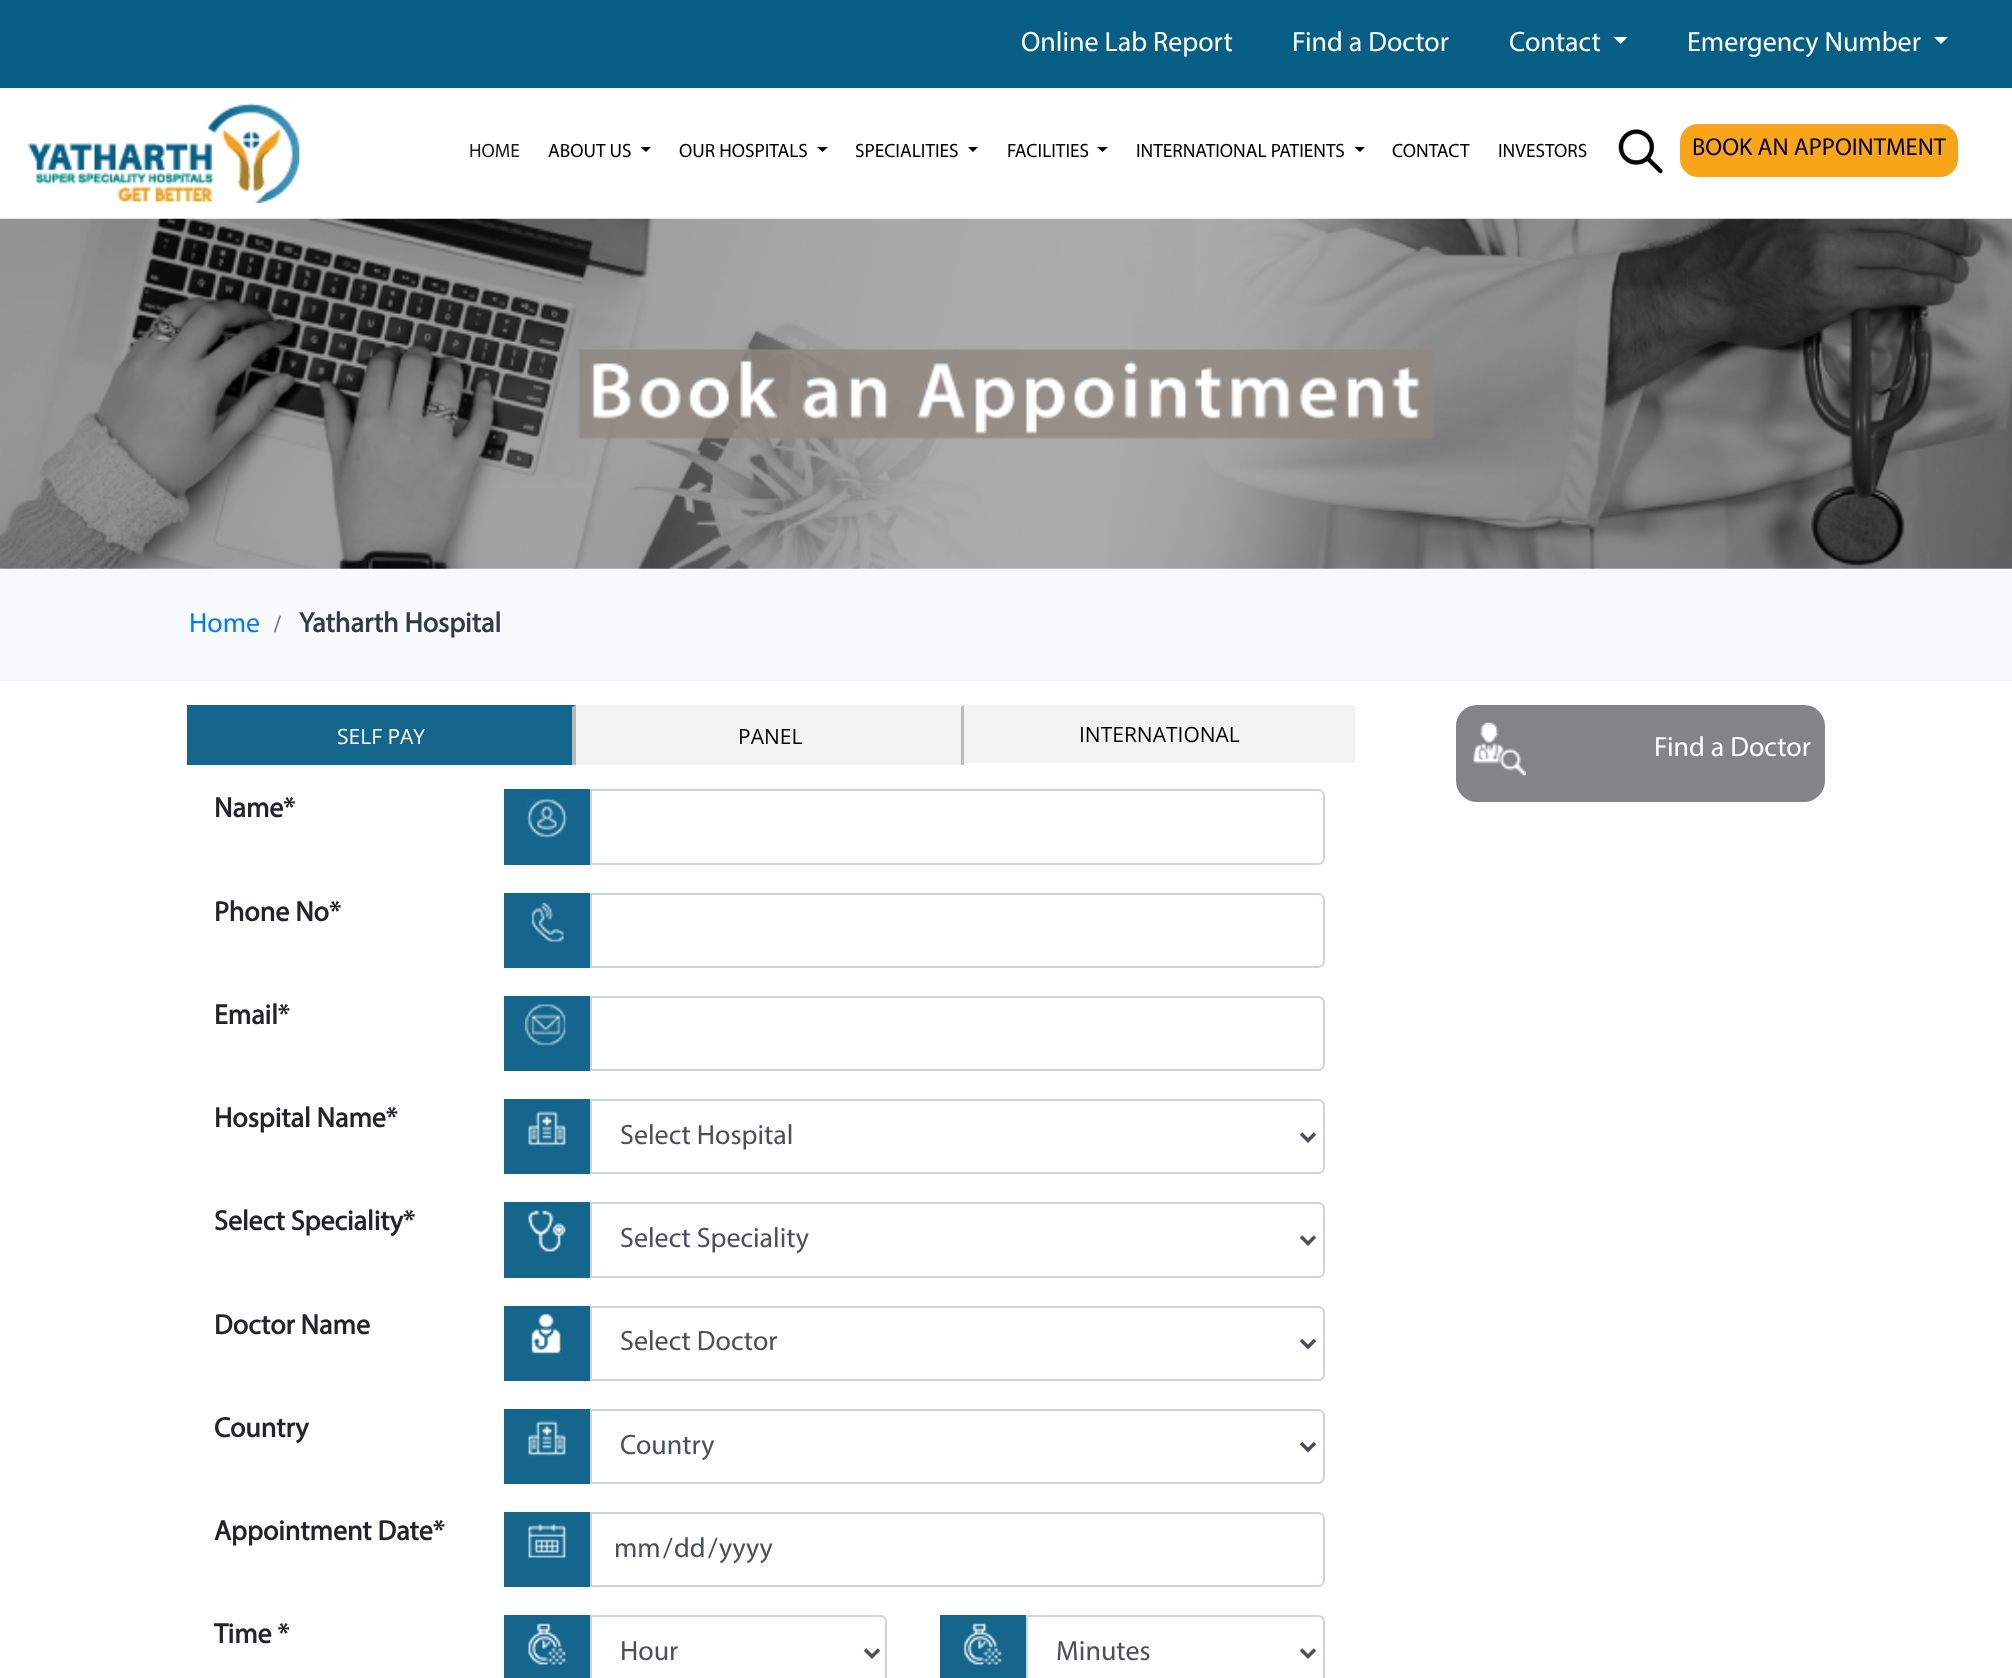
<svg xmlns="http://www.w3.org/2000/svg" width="2012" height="1678">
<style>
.a{font:28px Myriad;fill:#fff}
.b{font:19.25px Myriad;fill:#1a1a1a}
.c{font:19.25px Myriad;fill:#000}
.d{font:24.5px Myriad;fill:#000}
.e{font:28px Myriad;fill:#007bff}
.f{font:bold 24.5px Liberation Serif;fill:#6c757d}
.g{font:bold 28px Myriad;fill:#343a40}
.h{font:21px Open Sans;fill:#fff}
.i{font:21px Open Sans;fill:#000}
.j{font:bold 28px Myriad;fill:#212529}
.k{font:28px Myriad;fill:#495057}
</style>
<rect width="100%" height="100%" fill="#fff"/>
<path fill="#075f86" d="M0 0h2012v88H0z"/>
<path fill="#fff" d="M1613.5 37h14l-7 7z"/>
<path fill="#fff" d="M1934 37h14l-7 7z"/>
<image href="1.png" x="28" y="103" width="272" height="100"/>
<path fill="#000" d="M640.5 147h10.5l-5 5z"/>
<path fill="#000" d="M817 147h11l-5.5 5z"/>
<path fill="#000" d="M968 147h10l-5 5z"/>
<path fill="#000" d="M1097 147h11l-5.5 5z"/>
<path fill="#000" d="M1354.5 147h10.5l-5 5z"/>
<image href="2.png" x="1618" y="129" width="45" height="45"/>
<rect fill="#f9a51a" x="1680" y="124" width="278" height="53" rx="18"/>
<image href="3.png" x="0" y="218" width="2012" height="351"/>
<path fill="#f8f9fa" d="M0 569h2012v112H0z"/>
<path fill="#14668d" d="M187 705h389v60H187z"/>
<path fill="#bababa" d="M576 705v60h-4v-58z"/>
<path fill="#f3f3f3" d="M576 705h388v60H576z"/>
<path fill="#bababa" d="M964 705v60h-3v-58z"/>
<path fill="#f3f3f3" d="M964 705h391v58H964z"/>
<path fill="#14668d" d="M504 789h86v76H504z"/>
<image href="4.png" x="526" y="798" width="42" height="41"/>
<path fill="none" stroke="#ced4da" stroke-width="2" d="M591 790h727c3.5 0 6 2.5 6 6v62c0 3.5-2.5 6-6 6h-727z"/>
<path fill="#14668d" d="M504 893h86v75H504z"/>
<image href="5.png" x="531" y="902" width="33" height="40"/>
<path fill="none" stroke="#ced4da" stroke-width="2" d="M591 894h727c3.5 0 6 2.5 6 6v61c0 3.5-2.5 6-6 6h-727z"/>
<path fill="#14668d" d="M504 996h86v75H504z"/>
<image href="6.png" x="525" y="1004" width="41" height="42"/>
<path fill="none" stroke="#ced4da" stroke-width="2" d="M591 997h727c3.5 0 6 2.5 6 6v61c0 3.5-2.5 6-6 6h-727z"/>
<path fill="#14668d" d="M504 1099h86v75H504z"/>
<image href="7.png" x="528" y="1111" width="38" height="36"/>
<path fill="none" stroke="#ced4da" stroke-width="2" d="M591 1100h727c3.5 0 6 2.5 6 6v61c0 3.5-2.5 6-6 6h-727z"/>
<path fill="none" stroke="#495057" stroke-width="3.5" d="M1301 1133.5l7 7l7-7"/>
<path fill="#14668d" d="M504 1202h86v76H504z"/>
<image href="8.png" x="528" y="1210" width="38" height="42"/>
<path fill="none" stroke="#ced4da" stroke-width="2" d="M591 1203h727c3.5 0 6 2.5 6 6v62c0 3.5-2.5 6-6 6h-727z"/>
<path fill="none" stroke="#495057" stroke-width="3.5" d="M1301 1236.5l7 7l7-7"/>
<path fill="#14668d" d="M504 1306h86v75H504z"/>
<image href="9.png" x="531" y="1313" width="30" height="41"/>
<path fill="none" stroke="#ced4da" stroke-width="2" d="M591 1307h727c3.5 0 6 2.5 6 6v61c0 3.5-2.5 6-6 6h-727z"/>
<path fill="none" stroke="#495057" stroke-width="3.5" d="M1301 1340l7 7l7-7"/>
<path fill="#14668d" d="M504 1409h86v75H504z"/>
<image href="10.png" x="528" y="1420" width="38" height="37"/>
<path fill="none" stroke="#ced4da" stroke-width="2" d="M591 1410h727c3.5 0 6 2.5 6 6v61c0 3.5-2.5 6-6 6h-727z"/>
<path fill="none" stroke="#495057" stroke-width="3.5" d="M1301 1443l7 7l7-7"/>
<path fill="#14668d" d="M504 1512h86v75H504z"/>
<image href="11.png" x="528" y="1523" width="38" height="35"/>
<path fill="none" stroke="#ced4da" stroke-width="2" d="M591 1513h727c3.5 0 6 2.5 6 6v61c0 3.5-2.5 6-6 6h-727z"/>
<path fill="#14668d" d="M504 1615h86v63H504z"/>
<image href="12.png" x="528" y="1623" width="38" height="42"/>
<path fill="none" stroke="#ced4da" stroke-width="2" d="M591 1616h289c3.5 0 6 2.5 6 6v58c0 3.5-2.5 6-6 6h-289z"/>
<path fill="none" stroke="#495057" stroke-width="3.5" d="M865 1649.5l7 7l7-7"/>
<path fill="#14668d" d="M940 1615h86v63H940z"/>
<image href="13.png" x="963" y="1623" width="39" height="42"/>
<path fill="none" stroke="#ced4da" stroke-width="2" d="M1027 1616h291c3.5 0 6 2.5 6 6v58c0 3.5-2.5 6-6 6h-291z"/>
<path fill="none" stroke="#495057" stroke-width="3.5" d="M1301 1649.5l7 7l7-7"/>
<rect fill="#838486" x="1456" y="705" width="369" height="97" rx="21"/>
<image href="14.png" x="1473" y="722" width="53" height="54"/>
<text class="a" x="1021" y="51">Online Lab Report</text>
<text class="a" x="1292" y="51">Find a Doctor</text>
<text class="a" x="1509" y="51">Contact</text>
<text class="a" x="1687" y="51">Emergency Number</text>
<text class="b" x="469" y="157">HOME</text>
<text class="c" x="548" y="157">ABOUT US</text>
<text class="c" x="679" y="157">OUR HOSPITALS</text>
<text class="c" x="855" y="157">SPECIALITIES</text>
<text class="c" x="1007" y="157">FACILITIES</text>
<text class="c" x="1136" y="157">INTERNATIONAL PATIENTS</text>
<text class="c" x="1392" y="157">CONTACT</text>
<text class="c" x="1498" y="157">INVESTORS</text>
<text class="d" x="1692" y="155">BOOK AN APPOINTMENT</text>
<text class="e" x="189" y="632">Home</text>
<text class="f" x="274" y="632">/</text>
<text class="g" x="299" y="632">Yatharth Hospital</text>
<text class="h" x="337" y="744">SELF PAY</text>
<text class="i" x="738" y="744">PANEL</text>
<text class="i" x="1079" y="742">INTERNATIONAL</text>
<text class="j" x="214" y="817">Name*</text>
<text class="j" x="214" y="921">Phone No*</text>
<text class="j" x="214" y="1024">Email*</text>
<text class="j" x="214" y="1127">Hospital Name*</text>
<text class="k" x="620" y="1144">Select Hospital</text>
<text class="j" x="214" y="1230">Select Speciality*</text>
<text class="k" x="620" y="1247">Select Speciality</text>
<text class="j" x="214" y="1334">Doctor Name</text>
<text class="k" x="620" y="1350">Select Doctor</text>
<text class="j" x="214" y="1437">Country</text>
<text class="k" x="620" y="1454">Country</text>
<text class="j" x="214" y="1540">Appointment Date*</text>
<text class="k" x="614" y="1557">mm</text>
<text class="k" x="663" y="1557">/</text>
<text class="k" x="674" y="1557">dd</text>
<text class="k" x="708" y="1557">/</text>
<text class="k" x="719" y="1557">yyyy</text>
<text class="j" x="214" y="1643">Time *</text>
<text class="k" x="620" y="1660">Hour</text>
<text class="k" x="1056" y="1660">Minutes</text>
<text class="a" x="1654" y="756">Find a Doctor</text>
</svg>
